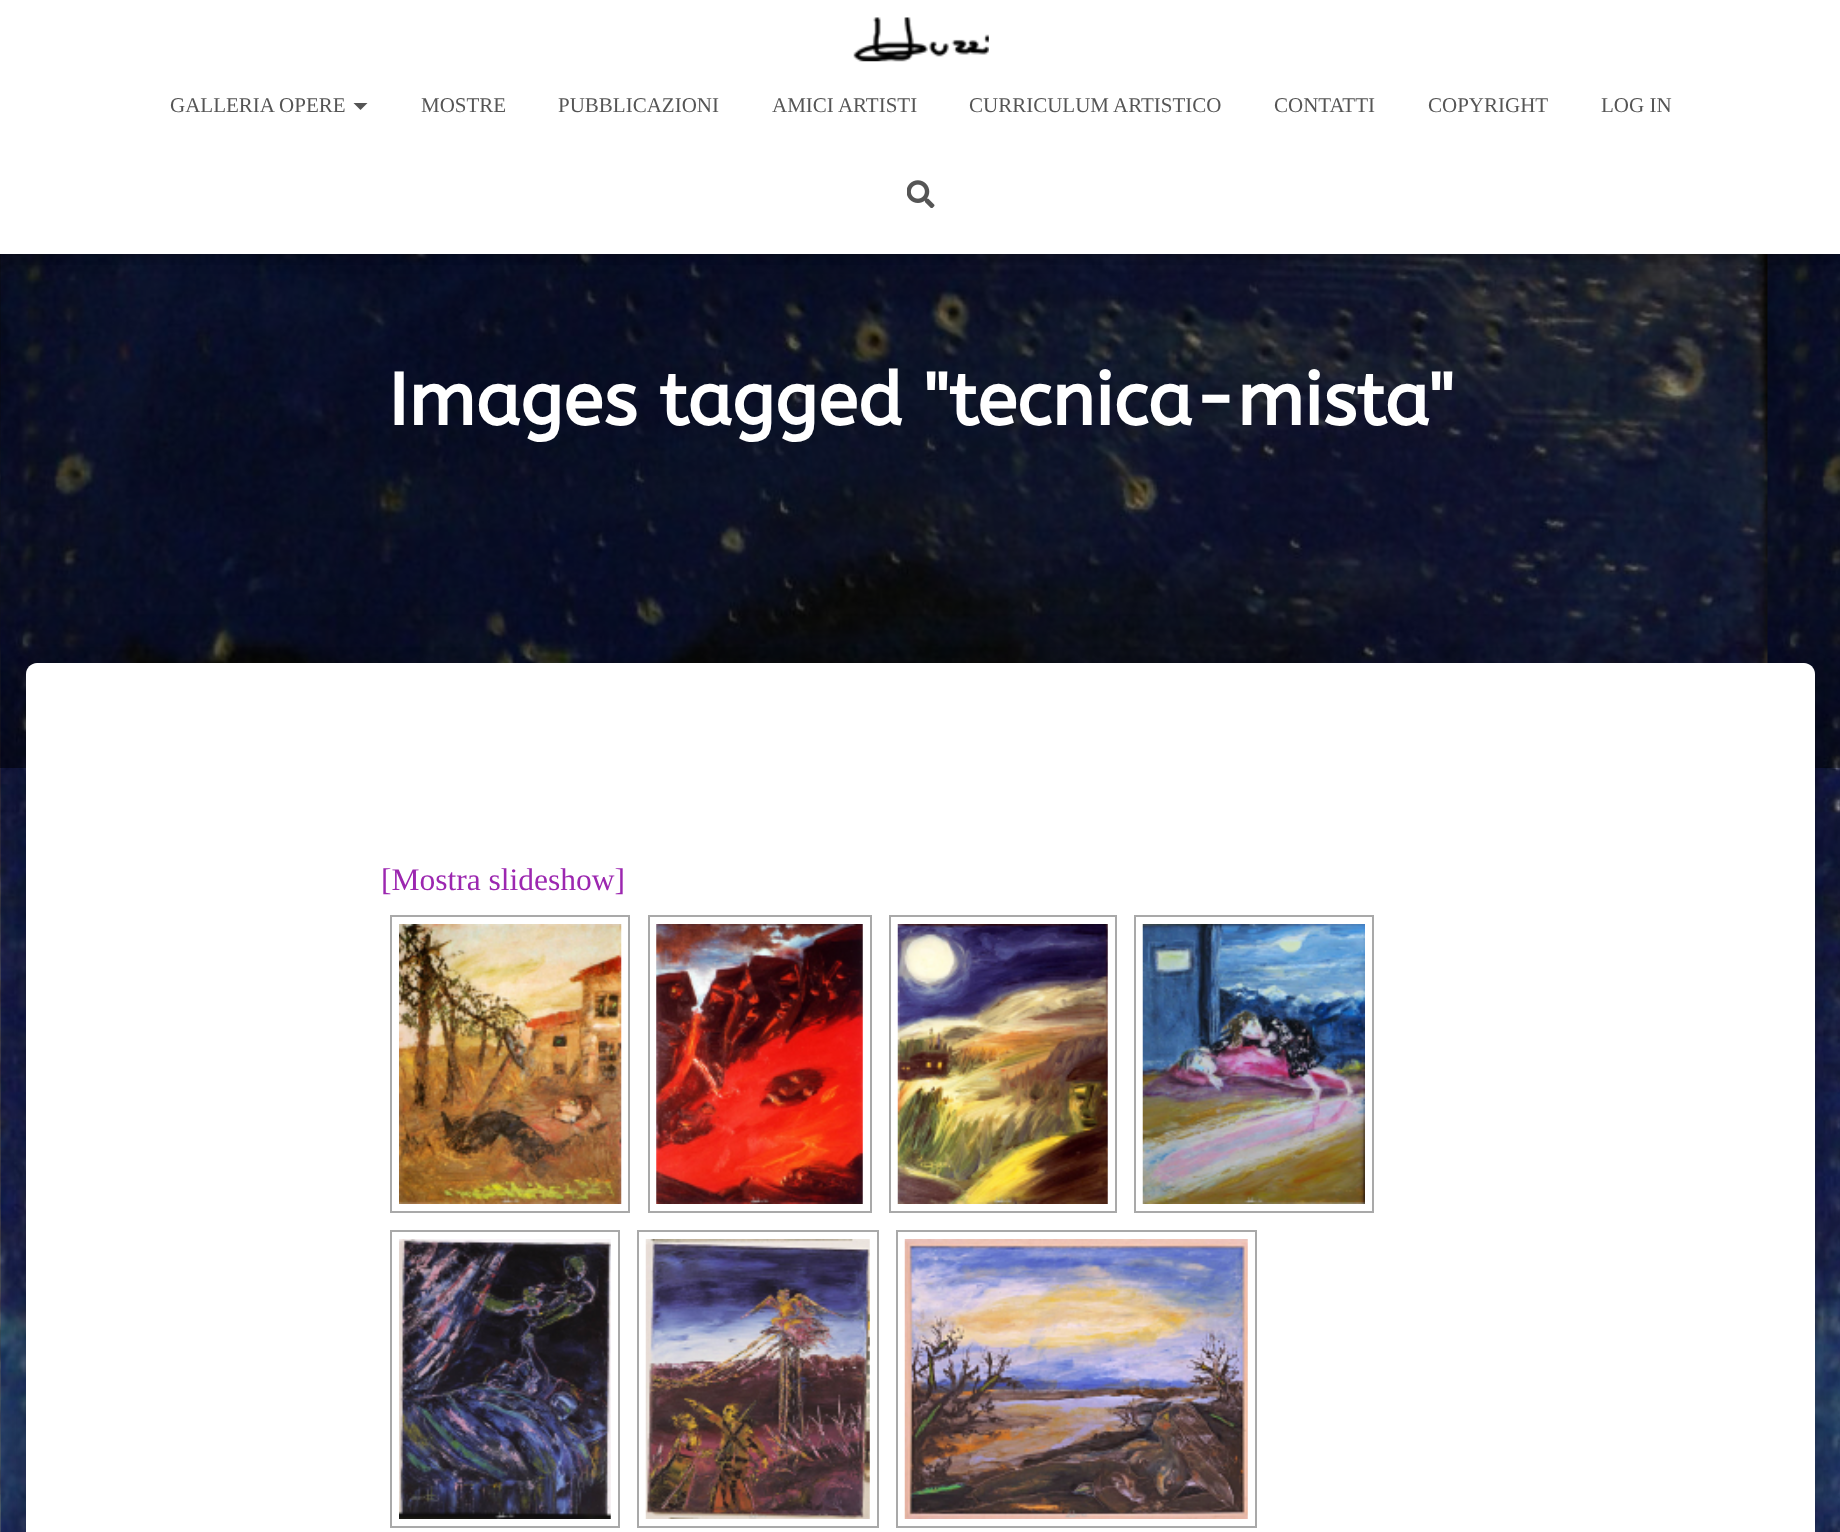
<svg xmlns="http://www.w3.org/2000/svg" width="1840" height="1532">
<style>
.a{font:21px Liberation Serif;fill:#555}
.b{font:bold 73.5px ABeeZee;fill:#fff}
.c{font:31.5px Liberation Serif;fill:#9c27b0}
</style>
<rect width="100%" height="100%" fill="#fff"/>
<image href="1.png" x="0" y="254" width="1840" height="1278"/>
<path fill="#00000080" d="M0 254h1840v514H0z"/>
<path fill="#0000001a" filter="blur(4.5px)" d="M4 11h1834v246H4z"/>
<path fill="#0000001f" filter="blur(9px)" d="M0 2h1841v254H0z"/>
<path fill="#0000006b" filter="blur(9px)" d="M11 12h1820v233H11z"/>
<path fill="#fff" d="M0 0h1840v254H0z"/>
<image href="2.png" x="853" y="17" width="136" height="45"/>
<path fill="#555" d="M353.5 103h14l-7 7z"/>
<image href="3.png" x="907" y="180" width="28" height="28"/>
<rect fill="#00000033" filter="blur(9px)" x="35" y="686" width="1771" height="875" rx="2"/>
<rect fill="#0000001f" filter="blur(26px)" x="18" y="665" width="1806" height="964" rx="19"/>
<rect fill="#00000024" filter="blur(21px)" x="23" y="688" width="1795" height="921" rx="14"/>
<path fill="#fff" d="M37 663h1767c6 0 11 5 11 11v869h-1789v-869c0-6 5-11 11-11z"/>
<path fill="none" stroke="#a9a9a9" stroke-width="2" d="M391 916h238v296H391z"/>
<image href="4.png" x="399" y="924" width="223" height="280"/>
<path fill="none" stroke="#a9a9a9" stroke-width="2" d="M649 916h222v296H649z"/>
<image href="5.png" x="656" y="924" width="207" height="280"/>
<path fill="none" stroke="#a9a9a9" stroke-width="2" d="M890 916h226v296H890z"/>
<image href="6.png" x="897" y="924" width="211" height="280"/>
<path fill="none" stroke="#a9a9a9" stroke-width="2" d="M1135 916h238v296H1135z"/>
<image href="7.png" x="1142" y="924" width="223" height="280"/>
<path fill="none" stroke="#a9a9a9" stroke-width="2" d="M391 1231h228v296H391z"/>
<image href="8.png" x="399" y="1239" width="212" height="280"/>
<path fill="none" stroke="#a9a9a9" stroke-width="2" d="M638 1231h240v296H638z"/>
<image href="9.png" x="645" y="1239" width="225" height="280"/>
<path fill="none" stroke="#a9a9a9" stroke-width="2" d="M897 1231h359v296H897z"/>
<image href="10.png" x="904" y="1239" width="344" height="280"/>
<text class="a" x="170" y="112">GALLERIA OPERE</text>
<text class="a" x="421" y="112">MOSTRE</text>
<text class="a" x="558" y="112">PUBBLICAZIONI</text>
<text class="a" x="772" y="112">AMICI ARTISTI</text>
<text class="a" x="969" y="112">CURRICULUM ARTISTICO</text>
<text class="a" x="1274" y="112">CONTATTI</text>
<text class="a" x="1428" y="112">COPYRIGHT</text>
<text class="a" x="1601" y="112">LOG IN</text>
<text class="b" x="388" y="425">Images tagged "tecnica-mista"</text>
<text class="c" x="381" y="890">[Mostra slideshow]</text>
</svg>
